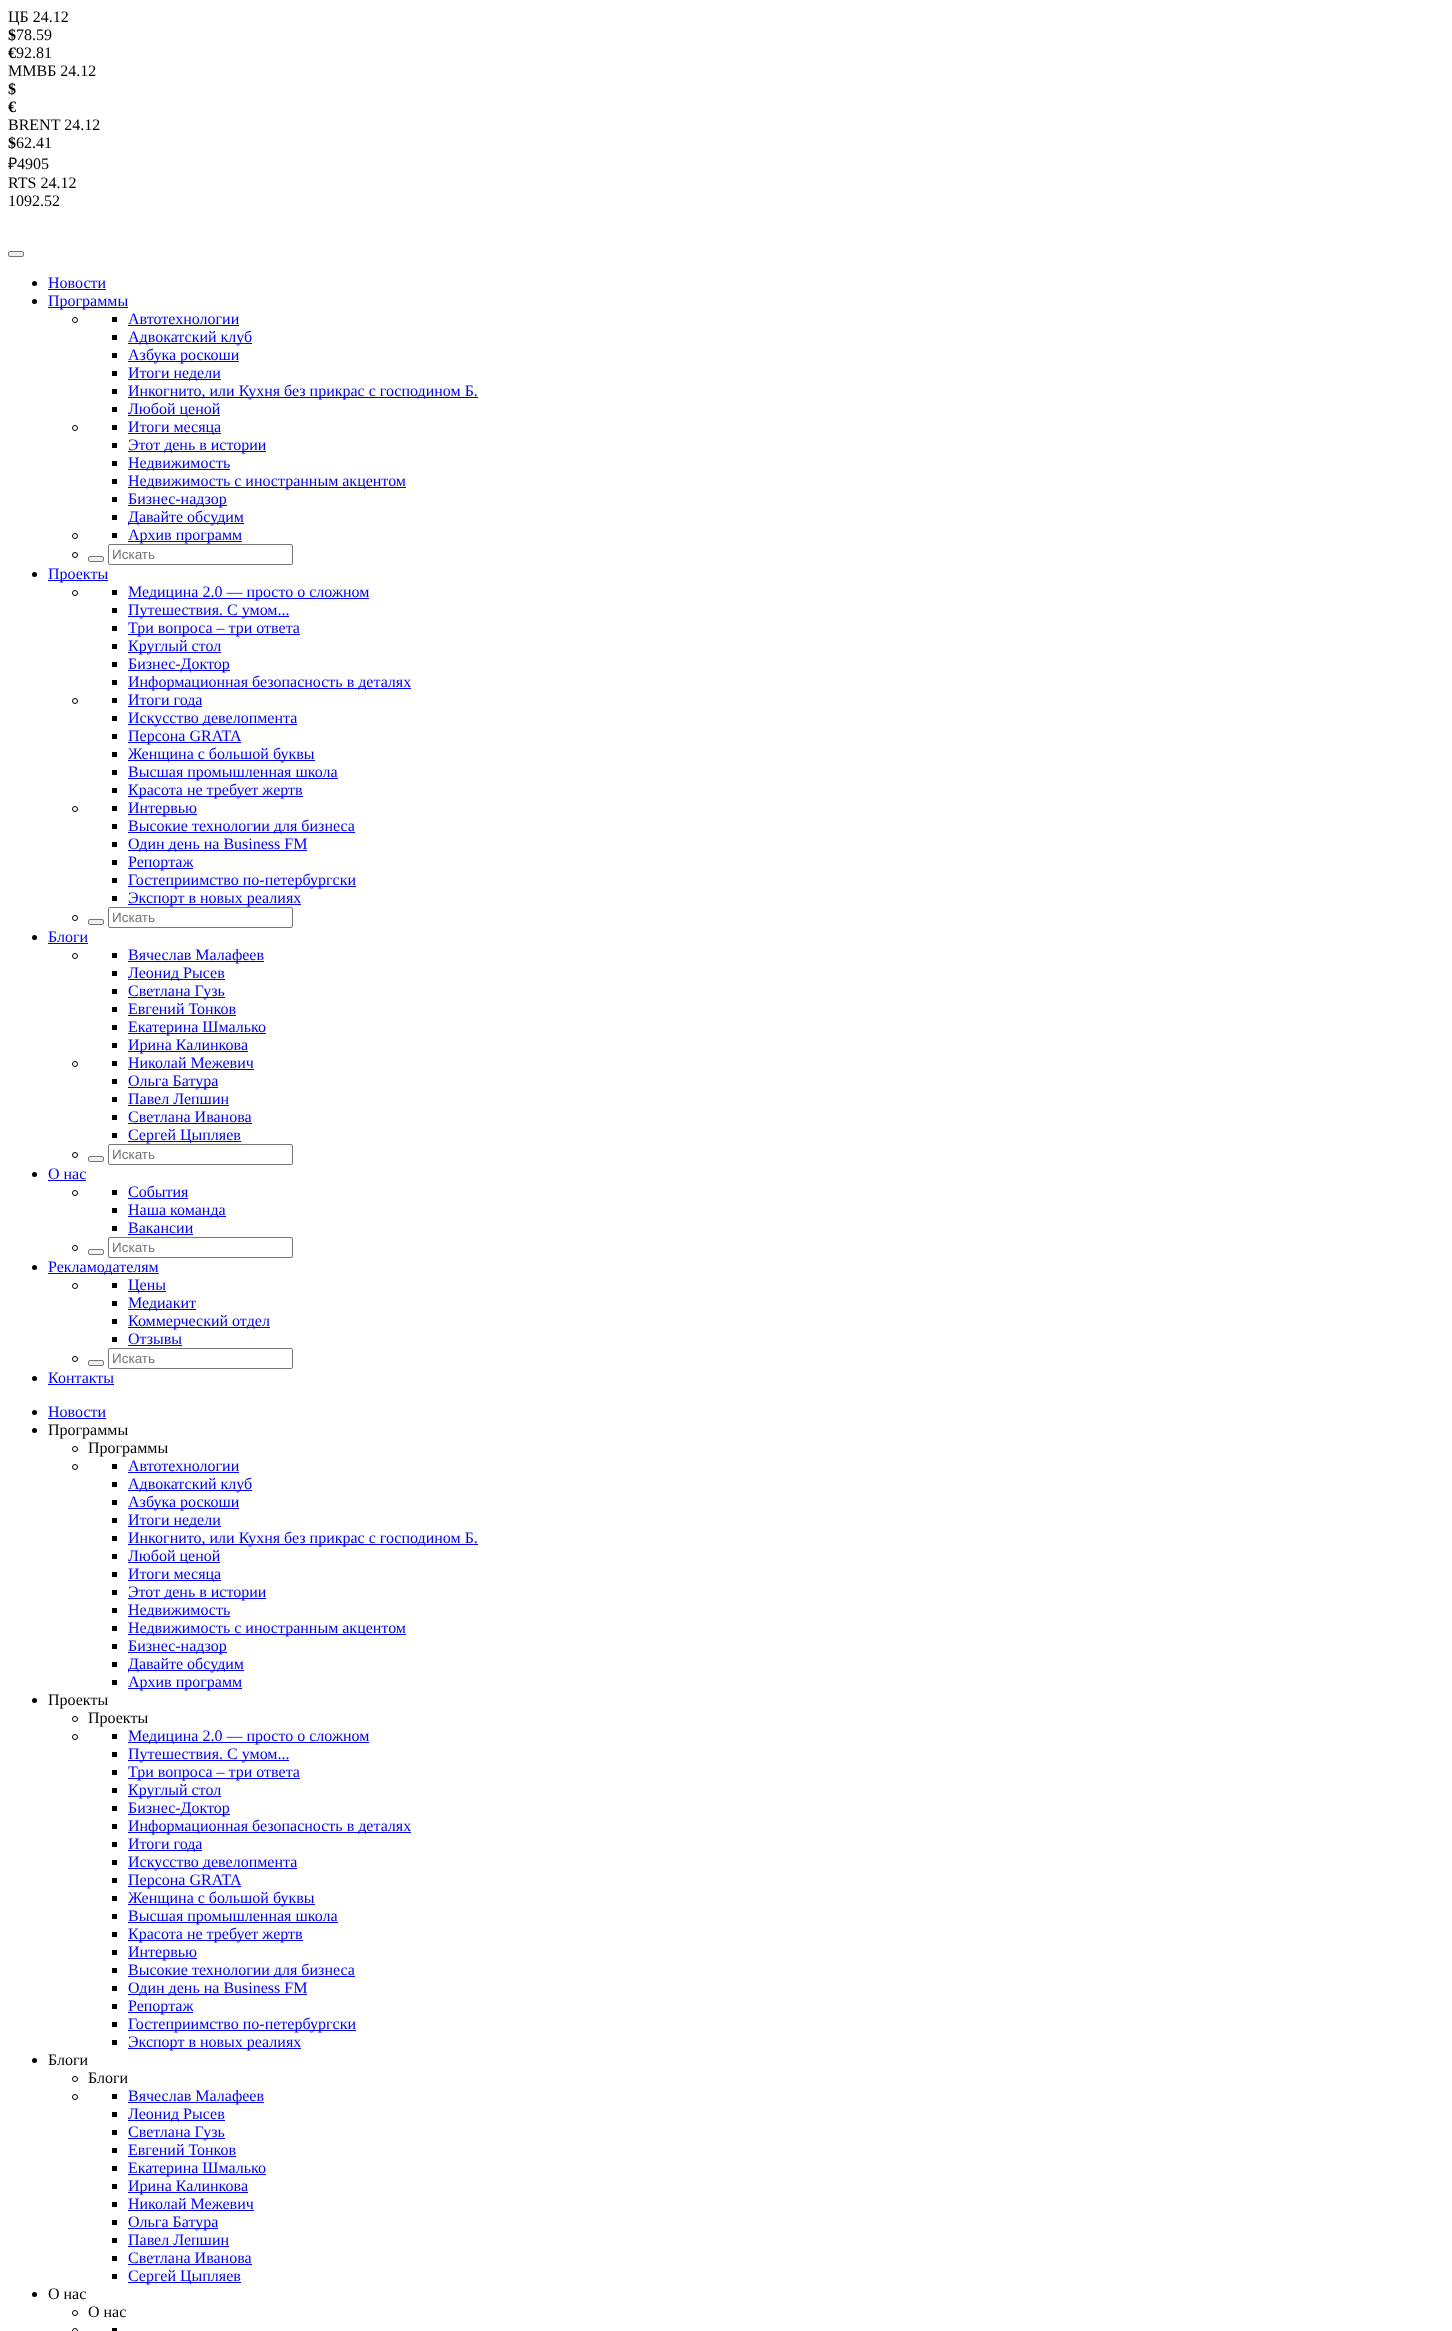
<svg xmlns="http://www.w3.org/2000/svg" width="1452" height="2331">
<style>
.a{font:16px Liberation Serif;fill:#000}
.b{font:bold 16px Liberation Serif;fill:#000}
.c{font:16px Noto Sans;fill:#000}
.d{font:16px Liberation Serif;fill:#00e}
.e{font:13.5px Liberation Sans;fill:#757575}
</style>
<rect width="100%" height="100%" fill="#fff"/>
<rect fill="#efefef" stroke="#767676" x="8.5" y="251.5" width="15" height="5" rx="1.5"/>
<circle fill="#000" cx="34.5" cy="283.5" r="2.5"/>
<path fill="#00e" d="M48 289h58v1H48z"/>
<circle fill="#000" cx="34.5" cy="301.5" r="2.5"/>
<path fill="#00e" d="M48 307h80v1H48z"/>
<circle fill="none" stroke="#000" cx="75" cy="320" r="2.5"/>
<path fill="#000" d="M112 317h5v5H112z"/>
<path fill="#00e" d="M128 325h111v1H128z"/>
<path fill="#000" d="M112 335h5v5H112z"/>
<path fill="#00e" d="M128 343h124v1H128z"/>
<path fill="#000" d="M112 353h5v5H112z"/>
<path fill="#00e" d="M128 361h111v1H128z"/>
<path fill="#000" d="M112 371h5v5H112z"/>
<path fill="#00e" d="M128 379h93v1H128z"/>
<path fill="#000" d="M112 389h5v5H112z"/>
<path fill="#00e" d="M128 397h350v1H128z"/>
<path fill="#000" d="M112 407h5v5H112z"/>
<path fill="#00e" d="M128 415h92v1H128z"/>
<circle fill="none" stroke="#000" cx="75" cy="428" r="2.5"/>
<path fill="#000" d="M112 425h5v5H112z"/>
<path fill="#00e" d="M128 433h93v1H128z"/>
<path fill="#000" d="M112 443h5v5H112z"/>
<path fill="#00e" d="M128 451h138v1H128z"/>
<path fill="#000" d="M112 461h5v5H112z"/>
<path fill="#00e" d="M128 469h102v1H128z"/>
<path fill="#000" d="M112 479h5v5H112z"/>
<path fill="#00e" d="M128 487h278v1H128z"/>
<path fill="#000" d="M112 497h5v5H112z"/>
<path fill="#00e" d="M128 505h99v1H128z"/>
<path fill="#000" d="M112 515h5v5H112z"/>
<path fill="#00e" d="M128 523h116v1H128z"/>
<circle fill="none" stroke="#000" cx="75" cy="536" r="2.5"/>
<path fill="#000" d="M112 533h5v5H112z"/>
<path fill="#00e" d="M128 541h114v1H128z"/>
<circle fill="none" stroke="#000" cx="75" cy="555" r="2.5"/>
<rect fill="#efefef" stroke="#767676" x="88.5" y="556.5" width="15" height="5" rx="1.5"/>
<rect fill="none" stroke="#767676" x="108.5" y="544.5" width="184" height="20" rx="1.5"/>
<circle fill="#000" cx="34.5" cy="574.5" r="2.5"/>
<path fill="#00e" d="M48 580h60v1H48z"/>
<circle fill="none" stroke="#000" cx="75" cy="593" r="2.5"/>
<path fill="#000" d="M112 590h5v5H112z"/>
<path fill="#00e" d="M128 598h241v1H128z"/>
<path fill="#000" d="M112 608h5v5H112z"/>
<path fill="#00e" d="M128 616h161v1H128z"/>
<path fill="#000" d="M112 626h5v5H112z"/>
<path fill="#00e" d="M128 634h172v1H128z"/>
<path fill="#000" d="M112 644h5v5H112z"/>
<path fill="#00e" d="M128 652h93v1H128z"/>
<path fill="#000" d="M112 662h5v5H112z"/>
<path fill="#00e" d="M128 670h102v1H128z"/>
<path fill="#000" d="M112 680h5v5H112z"/>
<path fill="#00e" d="M128 688h283v1H128z"/>
<circle fill="none" stroke="#000" cx="75" cy="701" r="2.5"/>
<path fill="#000" d="M112 698h5v5H112z"/>
<path fill="#00e" d="M128 706h74v1H128z"/>
<path fill="#000" d="M112 716h5v5H112z"/>
<path fill="#00e" d="M128 724h169v1H128z"/>
<path fill="#000" d="M112 734h5v5H112z"/>
<path fill="#00e" d="M128 742h113v1H128z"/>
<path fill="#000" d="M112 752h5v5H112z"/>
<path fill="#00e" d="M128 760h187v1H128z"/>
<path fill="#000" d="M112 770h5v5H112z"/>
<path fill="#00e" d="M128 778h210v1H128z"/>
<path fill="#000" d="M112 788h5v5H112z"/>
<path fill="#00e" d="M128 796h175v1H128z"/>
<circle fill="none" stroke="#000" cx="75" cy="809" r="2.5"/>
<path fill="#000" d="M112 806h5v5H112z"/>
<path fill="#00e" d="M128 814h69v1H128z"/>
<path fill="#000" d="M112 824h5v5H112z"/>
<path fill="#00e" d="M128 832h227v1H128z"/>
<path fill="#000" d="M112 842h5v5H112z"/>
<path fill="#00e" d="M128 850h179v1H128z"/>
<path fill="#000" d="M112 860h5v5H112z"/>
<path fill="#00e" d="M128 868h65v1H128z"/>
<path fill="#000" d="M112 878h5v5H112z"/>
<path fill="#00e" d="M128 886h228v1H128z"/>
<path fill="#000" d="M112 896h5v5H112z"/>
<path fill="#00e" d="M128 904h173v1H128z"/>
<circle fill="none" stroke="#000" cx="75" cy="918" r="2.5"/>
<rect fill="#efefef" stroke="#767676" x="88.5" y="919.5" width="15" height="5" rx="1.5"/>
<rect fill="none" stroke="#767676" x="108.5" y="907.5" width="184" height="20" rx="1.5"/>
<circle fill="#000" cx="34.5" cy="937.5" r="2.5"/>
<path fill="#00e" d="M48 943h40v1H48z"/>
<circle fill="none" stroke="#000" cx="75" cy="956" r="2.5"/>
<path fill="#000" d="M112 953h5v5H112z"/>
<path fill="#00e" d="M128 961h136v1H128z"/>
<path fill="#000" d="M112 971h5v5H112z"/>
<path fill="#00e" d="M128 979h97v1H128z"/>
<path fill="#000" d="M112 989h5v5H112z"/>
<path fill="#00e" d="M128 997h97v1H128z"/>
<path fill="#000" d="M112 1007h5v5H112z"/>
<path fill="#00e" d="M128 1015h108v1H128z"/>
<path fill="#000" d="M112 1025h5v5H112z"/>
<path fill="#00e" d="M128 1033h138v1H128z"/>
<path fill="#000" d="M112 1043h5v5H112z"/>
<path fill="#00e" d="M128 1051h120v1H128z"/>
<circle fill="none" stroke="#000" cx="75" cy="1064" r="2.5"/>
<path fill="#000" d="M112 1061h5v5H112z"/>
<path fill="#00e" d="M128 1069h126v1H128z"/>
<path fill="#000" d="M112 1079h5v5H112z"/>
<path fill="#00e" d="M128 1087h90v1H128z"/>
<path fill="#000" d="M112 1097h5v5H112z"/>
<path fill="#00e" d="M128 1105h101v1H128z"/>
<path fill="#000" d="M112 1115h5v5H112z"/>
<path fill="#00e" d="M128 1123h124v1H128z"/>
<path fill="#000" d="M112 1133h5v5H112z"/>
<path fill="#00e" d="M128 1141h113v1H128z"/>
<circle fill="none" stroke="#000" cx="75" cy="1155" r="2.5"/>
<rect fill="#efefef" stroke="#767676" x="88.5" y="1156.5" width="15" height="5" rx="1.5"/>
<rect fill="none" stroke="#767676" x="108.5" y="1144.5" width="184" height="20" rx="1.5"/>
<circle fill="#000" cx="34.5" cy="1174.5" r="2.5"/>
<path fill="#00e" d="M48 1180h38v1H48z"/>
<circle fill="none" stroke="#000" cx="75" cy="1193" r="2.5"/>
<path fill="#000" d="M112 1190h5v5H112z"/>
<path fill="#00e" d="M128 1198h60v1H128z"/>
<path fill="#000" d="M112 1208h5v5H112z"/>
<path fill="#00e" d="M128 1216h98v1H128z"/>
<path fill="#000" d="M112 1226h5v5H112z"/>
<path fill="#00e" d="M128 1234h65v1H128z"/>
<circle fill="none" stroke="#000" cx="75" cy="1248" r="2.5"/>
<rect fill="#efefef" stroke="#767676" x="88.5" y="1249.5" width="15" height="5" rx="1.5"/>
<rect fill="none" stroke="#767676" x="108.5" y="1237.5" width="184" height="20" rx="1.5"/>
<circle fill="#000" cx="34.5" cy="1267.5" r="2.5"/>
<path fill="#00e" d="M48 1273h111v1H48z"/>
<circle fill="none" stroke="#000" cx="75" cy="1286" r="2.5"/>
<path fill="#000" d="M112 1283h5v5H112z"/>
<path fill="#00e" d="M128 1291h38v1H128z"/>
<path fill="#000" d="M112 1301h5v5H112z"/>
<path fill="#00e" d="M128 1309h68v1H128z"/>
<path fill="#000" d="M112 1319h5v5H112z"/>
<path fill="#00e" d="M128 1327h142v1H128z"/>
<path fill="#000" d="M112 1337h5v5H112z"/>
<path fill="#00e" d="M128 1345h54v1H128z"/>
<circle fill="none" stroke="#000" cx="75" cy="1359" r="2.5"/>
<rect fill="#efefef" stroke="#767676" x="88.5" y="1360.5" width="15" height="5" rx="1.5"/>
<rect fill="none" stroke="#767676" x="108.5" y="1348.5" width="184" height="20" rx="1.5"/>
<circle fill="#000" cx="34.5" cy="1378.5" r="2.5"/>
<path fill="#00e" d="M48 1384h66v1H48z"/>
<circle fill="#000" cx="34.5" cy="1412.5" r="2.5"/>
<path fill="#00e" d="M48 1418h58v1H48z"/>
<circle fill="#000" cx="34.5" cy="1430.5" r="2.5"/>
<circle fill="none" stroke="#000" cx="75" cy="1449" r="2.5"/>
<circle fill="none" stroke="#000" cx="75" cy="1467" r="2.5"/>
<path fill="#000" d="M112 1464h5v5H112z"/>
<path fill="#00e" d="M128 1472h111v1H128z"/>
<path fill="#000" d="M112 1482h5v5H112z"/>
<path fill="#00e" d="M128 1490h124v1H128z"/>
<path fill="#000" d="M112 1500h5v5H112z"/>
<path fill="#00e" d="M128 1508h111v1H128z"/>
<path fill="#000" d="M112 1518h5v5H112z"/>
<path fill="#00e" d="M128 1526h93v1H128z"/>
<path fill="#000" d="M112 1536h5v5H112z"/>
<path fill="#00e" d="M128 1544h350v1H128z"/>
<path fill="#000" d="M112 1554h5v5H112z"/>
<path fill="#00e" d="M128 1562h92v1H128z"/>
<path fill="#000" d="M112 1572h5v5H112z"/>
<path fill="#00e" d="M128 1580h93v1H128z"/>
<path fill="#000" d="M112 1590h5v5H112z"/>
<path fill="#00e" d="M128 1598h138v1H128z"/>
<path fill="#000" d="M112 1608h5v5H112z"/>
<path fill="#00e" d="M128 1616h102v1H128z"/>
<path fill="#000" d="M112 1626h5v5H112z"/>
<path fill="#00e" d="M128 1634h278v1H128z"/>
<path fill="#000" d="M112 1644h5v5H112z"/>
<path fill="#00e" d="M128 1652h99v1H128z"/>
<path fill="#000" d="M112 1662h5v5H112z"/>
<path fill="#00e" d="M128 1670h116v1H128z"/>
<path fill="#000" d="M112 1680h5v5H112z"/>
<path fill="#00e" d="M128 1688h114v1H128z"/>
<circle fill="#000" cx="34.5" cy="1700.5" r="2.5"/>
<circle fill="none" stroke="#000" cx="75" cy="1719" r="2.5"/>
<circle fill="none" stroke="#000" cx="75" cy="1737" r="2.5"/>
<path fill="#000" d="M112 1734h5v5H112z"/>
<path fill="#00e" d="M128 1742h241v1H128z"/>
<path fill="#000" d="M112 1752h5v5H112z"/>
<path fill="#00e" d="M128 1760h161v1H128z"/>
<path fill="#000" d="M112 1770h5v5H112z"/>
<path fill="#00e" d="M128 1778h172v1H128z"/>
<path fill="#000" d="M112 1788h5v5H112z"/>
<path fill="#00e" d="M128 1796h93v1H128z"/>
<path fill="#000" d="M112 1806h5v5H112z"/>
<path fill="#00e" d="M128 1814h102v1H128z"/>
<path fill="#000" d="M112 1824h5v5H112z"/>
<path fill="#00e" d="M128 1832h283v1H128z"/>
<path fill="#000" d="M112 1842h5v5H112z"/>
<path fill="#00e" d="M128 1850h74v1H128z"/>
<path fill="#000" d="M112 1860h5v5H112z"/>
<path fill="#00e" d="M128 1868h169v1H128z"/>
<path fill="#000" d="M112 1878h5v5H112z"/>
<path fill="#00e" d="M128 1886h113v1H128z"/>
<path fill="#000" d="M112 1896h5v5H112z"/>
<path fill="#00e" d="M128 1904h187v1H128z"/>
<path fill="#000" d="M112 1914h5v5H112z"/>
<path fill="#00e" d="M128 1922h210v1H128z"/>
<path fill="#000" d="M112 1932h5v5H112z"/>
<path fill="#00e" d="M128 1940h175v1H128z"/>
<path fill="#000" d="M112 1950h5v5H112z"/>
<path fill="#00e" d="M128 1958h69v1H128z"/>
<path fill="#000" d="M112 1968h5v5H112z"/>
<path fill="#00e" d="M128 1976h227v1H128z"/>
<path fill="#000" d="M112 1986h5v5H112z"/>
<path fill="#00e" d="M128 1994h179v1H128z"/>
<path fill="#000" d="M112 2004h5v5H112z"/>
<path fill="#00e" d="M128 2012h65v1H128z"/>
<path fill="#000" d="M112 2022h5v5H112z"/>
<path fill="#00e" d="M128 2030h228v1H128z"/>
<path fill="#000" d="M112 2040h5v5H112z"/>
<path fill="#00e" d="M128 2048h173v1H128z"/>
<circle fill="#000" cx="34.5" cy="2060.5" r="2.5"/>
<circle fill="none" stroke="#000" cx="75" cy="2079" r="2.5"/>
<circle fill="none" stroke="#000" cx="75" cy="2097" r="2.5"/>
<path fill="#000" d="M112 2094h5v5H112z"/>
<path fill="#00e" d="M128 2102h136v1H128z"/>
<path fill="#000" d="M112 2112h5v5H112z"/>
<path fill="#00e" d="M128 2120h97v1H128z"/>
<path fill="#000" d="M112 2130h5v5H112z"/>
<path fill="#00e" d="M128 2138h97v1H128z"/>
<path fill="#000" d="M112 2148h5v5H112z"/>
<path fill="#00e" d="M128 2156h108v1H128z"/>
<path fill="#000" d="M112 2166h5v5H112z"/>
<path fill="#00e" d="M128 2174h138v1H128z"/>
<path fill="#000" d="M112 2184h5v5H112z"/>
<path fill="#00e" d="M128 2192h120v1H128z"/>
<path fill="#000" d="M112 2202h5v5H112z"/>
<path fill="#00e" d="M128 2210h126v1H128z"/>
<path fill="#000" d="M112 2220h5v5H112z"/>
<path fill="#00e" d="M128 2228h90v1H128z"/>
<path fill="#000" d="M112 2238h5v5H112z"/>
<path fill="#00e" d="M128 2246h101v1H128z"/>
<path fill="#000" d="M112 2256h5v5H112z"/>
<path fill="#00e" d="M128 2264h124v1H128z"/>
<path fill="#000" d="M112 2274h5v5H112z"/>
<path fill="#00e" d="M128 2282h113v1H128z"/>
<circle fill="#000" cx="34.5" cy="2294.5" r="2.5"/>
<circle fill="none" stroke="#000" cx="75" cy="2313" r="2.5"/>
<circle fill="none" stroke="#000" cx="75" cy="2331" r="2.5"/>
<path fill="#000" d="M112 2328h5v3H112z"/>
<text class="a" x="8" y="22">ЦБ 24.12</text>
<text class="b" x="8" y="40">$</text>
<text class="a" x="16" y="40">78.59</text>
<text class="b" x="8" y="58">€</text>
<text class="a" x="16" y="58">92.81</text>
<text class="a" x="8" y="76">ММВБ 24.12</text>
<text class="b" x="8" y="94">$</text>
<text class="b" x="8" y="112">€</text>
<text class="a" x="8" y="130">BRENT 24.12</text>
<text class="b" x="8" y="148">$</text>
<text class="a" x="16" y="148">62.41</text>
<text class="c" x="8" y="169">₽</text>
<text class="a" x="17" y="169">4905</text>
<text class="a" x="8" y="188">RTS 24.12</text>
<text class="a" x="8" y="206">1092.52</text>
<text class="d" x="48" y="288">Новости</text>
<text class="d" x="48" y="306">Программы</text>
<text class="d" x="128" y="324">Автотехнологии</text>
<text class="d" x="128" y="342">Адвокатский клуб</text>
<text class="d" x="128" y="360">Азбука роскоши</text>
<text class="d" x="128" y="378">Итоги недели</text>
<text class="d" x="128" y="396">Инкогнито, или Кухня без прикрас с господином Б.</text>
<text class="d" x="128" y="414">Любой ценой</text>
<text class="d" x="128" y="432">Итоги месяца</text>
<text class="d" x="128" y="450">Этот день в истории</text>
<text class="d" x="128" y="468">Недвижимость</text>
<text class="d" x="128" y="486">Недвижимость с иностранным акцентом</text>
<text class="d" x="128" y="504">Бизнес-надзор</text>
<text class="d" x="128" y="522">Давайте обсудим</text>
<text class="d" x="128" y="540">Архив программ</text>
<text class="e" x="112" y="559">Искать</text>
<text class="d" x="48" y="579">Проекты</text>
<text class="d" x="128" y="597">Медицина 2.0 — просто о сложном</text>
<text class="d" x="128" y="615">Путешествия. С умом...</text>
<text class="d" x="128" y="633">Три вопроса – три ответа</text>
<text class="d" x="128" y="651">Круглый стол</text>
<text class="d" x="128" y="669">Бизнес-Доктор</text>
<text class="d" x="128" y="687">Информационная безопасность в деталях</text>
<text class="d" x="128" y="705">Итоги года</text>
<text class="d" x="128" y="723">Искусство девелопмента</text>
<text class="d" x="128" y="741">Персона GRATA</text>
<text class="d" x="128" y="759">Женщина с большой буквы</text>
<text class="d" x="128" y="777">Высшая промышленная школа</text>
<text class="d" x="128" y="795">Красота не требует жертв</text>
<text class="d" x="128" y="813">Интервью</text>
<text class="d" x="128" y="831">Высокие технологии для бизнеса</text>
<text class="d" x="128" y="849">Один день на Business FM</text>
<text class="d" x="128" y="867">Репортаж</text>
<text class="d" x="128" y="885">Гостеприимство по-петербургски</text>
<text class="d" x="128" y="903">Экспорт в новых реалиях</text>
<text class="e" x="112" y="922">Искать</text>
<text class="d" x="48" y="942">Блоги</text>
<text class="d" x="128" y="960">Вячеслав Малафеев</text>
<text class="d" x="128" y="978">Леонид Рысев</text>
<text class="d" x="128" y="996">Светлана Гузь</text>
<text class="d" x="128" y="1014">Евгений Тонков</text>
<text class="d" x="128" y="1032">Екатерина Шмалько</text>
<text class="d" x="128" y="1050">Ирина Калинкова</text>
<text class="d" x="128" y="1068">Николай Межевич</text>
<text class="d" x="128" y="1086">Ольга Батура</text>
<text class="d" x="128" y="1104">Павел Лепшин</text>
<text class="d" x="128" y="1122">Светлана Иванова</text>
<text class="d" x="128" y="1140">Сергей Цыпляев</text>
<text class="e" x="112" y="1159">Искать</text>
<text class="d" x="48" y="1179">О нас</text>
<text class="d" x="128" y="1197">События</text>
<text class="d" x="128" y="1215">Наша команда</text>
<text class="d" x="128" y="1233">Вакансии</text>
<text class="e" x="112" y="1252">Искать</text>
<text class="d" x="48" y="1272">Рекламодателям</text>
<text class="d" x="128" y="1290">Цены</text>
<text class="d" x="128" y="1308">Медиакит</text>
<text class="d" x="128" y="1326">Коммерческий отдел</text>
<text class="d" x="128" y="1344">Отзывы</text>
<text class="e" x="112" y="1363">Искать</text>
<text class="d" x="48" y="1383">Контакты</text>
<text class="d" x="48" y="1417">Новости</text>
<text class="a" x="48" y="1435">Программы</text>
<text class="a" x="88" y="1453">Программы</text>
<text class="d" x="128" y="1471">Автотехнологии</text>
<text class="d" x="128" y="1489">Адвокатский клуб</text>
<text class="d" x="128" y="1507">Азбука роскоши</text>
<text class="d" x="128" y="1525">Итоги недели</text>
<text class="d" x="128" y="1543">Инкогнито, или Кухня без прикрас с господином Б.</text>
<text class="d" x="128" y="1561">Любой ценой</text>
<text class="d" x="128" y="1579">Итоги месяца</text>
<text class="d" x="128" y="1597">Этот день в истории</text>
<text class="d" x="128" y="1615">Недвижимость</text>
<text class="d" x="128" y="1633">Недвижимость с иностранным акцентом</text>
<text class="d" x="128" y="1651">Бизнес-надзор</text>
<text class="d" x="128" y="1669">Давайте обсудим</text>
<text class="d" x="128" y="1687">Архив программ</text>
<text class="a" x="48" y="1705">Проекты</text>
<text class="a" x="88" y="1723">Проекты</text>
<text class="d" x="128" y="1741">Медицина 2.0 — просто о сложном</text>
<text class="d" x="128" y="1759">Путешествия. С умом...</text>
<text class="d" x="128" y="1777">Три вопроса – три ответа</text>
<text class="d" x="128" y="1795">Круглый стол</text>
<text class="d" x="128" y="1813">Бизнес-Доктор</text>
<text class="d" x="128" y="1831">Информационная безопасность в деталях</text>
<text class="d" x="128" y="1849">Итоги года</text>
<text class="d" x="128" y="1867">Искусство девелопмента</text>
<text class="d" x="128" y="1885">Персона GRATA</text>
<text class="d" x="128" y="1903">Женщина с большой буквы</text>
<text class="d" x="128" y="1921">Высшая промышленная школа</text>
<text class="d" x="128" y="1939">Красота не требует жертв</text>
<text class="d" x="128" y="1957">Интервью</text>
<text class="d" x="128" y="1975">Высокие технологии для бизнеса</text>
<text class="d" x="128" y="1993">Один день на Business FM</text>
<text class="d" x="128" y="2011">Репортаж</text>
<text class="d" x="128" y="2029">Гостеприимство по-петербургски</text>
<text class="d" x="128" y="2047">Экспорт в новых реалиях</text>
<text class="a" x="48" y="2065">Блоги</text>
<text class="a" x="88" y="2083">Блоги</text>
<text class="d" x="128" y="2101">Вячеслав Малафеев</text>
<text class="d" x="128" y="2119">Леонид Рысев</text>
<text class="d" x="128" y="2137">Светлана Гузь</text>
<text class="d" x="128" y="2155">Евгений Тонков</text>
<text class="d" x="128" y="2173">Екатерина Шмалько</text>
<text class="d" x="128" y="2191">Ирина Калинкова</text>
<text class="d" x="128" y="2209">Николай Межевич</text>
<text class="d" x="128" y="2227">Ольга Батура</text>
<text class="d" x="128" y="2245">Павел Лепшин</text>
<text class="d" x="128" y="2263">Светлана Иванова</text>
<text class="d" x="128" y="2281">Сергей Цыпляев</text>
<text class="a" x="48" y="2299">О нас</text>
<text class="a" x="88" y="2317">О нас</text>
</svg>
